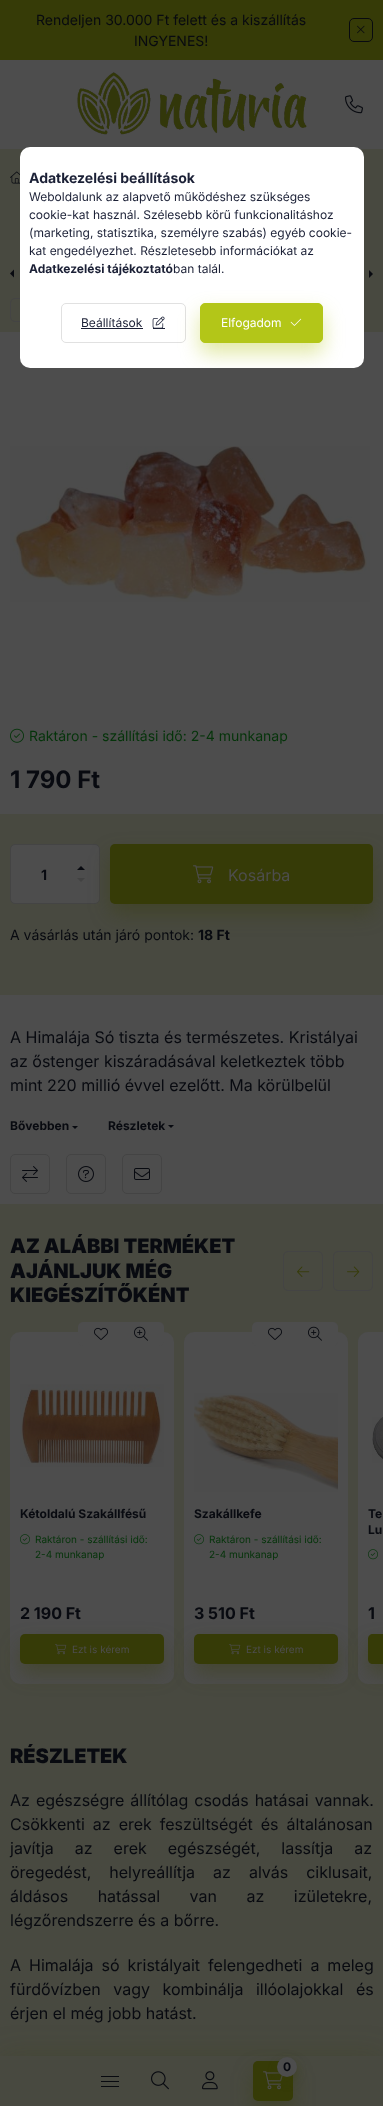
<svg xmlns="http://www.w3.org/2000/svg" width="383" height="2106">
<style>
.a{font:14px Inter;fill:#080a10}
.b{font:14px Inter;fill:#05340a}
.c{font:bold 24px Inter;fill:#080a10}
.d{font:bold 14px Inter;fill:#080a10}
.e{font:16px Inter;fill:#4d4d4d}
.f{font:16px Inter;fill:#080a10}
.g{font:bold 12px Inter;fill:#080a10}
.h{font:900 20px Inter;fill:#080a10}
.i{font:10px Inter;fill:#05340a}
.j{font:bold 16px Inter;fill:#080a10}
.k{font:10px Inter;fill:#4d4d4d}
.l{font:bold 14px Inter;fill:#1b2036}
.m{font:12px Inter;fill:#1b2036}
.n{font:bold 12px Inter;fill:#1b2036}
.o{font:12px Inter;fill:#fff}
</style>
<defs>
<clipPath id="clip1"><rect x="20" y="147" width="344" height="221" rx="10"/></clipPath>
</defs>
<rect width="100%" height="100%" fill="#484940"/>
<path fill="#363b07" d="M0 0h383v60H0z"/>
<rect fill="none" stroke="#080a10" x="349.5" y="18.5" width="23" height="23" rx="4.5"/>
<image href="1.png" x="357" y="25" width="8" height="9"/>
<path fill="#4d4d4d" d="M0 60h383v89H0z"/>
<image href="2.png" x="77" y="72" width="230" height="63"/>
<image href="3.png" x="345" y="95" width="18" height="19"/>
<image href="4.png" x="10" y="171" width="10" height="13"/>
<path fill="#080a10" d="M14 277.5v-8l-4 4z"/>
<path fill="#080a10" d="M369 278v-8l4 4z"/>
<rect fill="none" stroke="#444" x="10.5" y="298.5" width="39" height="23" rx="4.5"/>
<path fill="#4d4d4d" d="M0 332h383v872H0z"/>
<image href="5.png" x="10" y="446" width="360" height="156"/>
<image href="6.png" x="10" y="728" width="14" height="15"/>
<path fill="#484940" d="M0 814h383v181H0z"/>
<rect fill="#4d4d4d" stroke="#444" x="10.5" y="844.5" width="89" height="59" rx="4.5"/>
<path fill="#080a10" d="M85 870h-8l4-4z"/>
<path fill="#424242" d="M77 878h8l-4 4z"/>
<rect fill="#363b0766" filter="blur(10px)" x="110" y="854" width="263" height="60" rx="5"/>
<rect fill="#363b07" x="110" y="844" width="263" height="60" rx="5"/>
<image href="7.png" x="193" y="865" width="21" height="19"/>
<path fill="#080a10" d="M72 1126h6l-3 3z"/>
<path fill="#080a10" d="M168 1125h6l-3 3z"/>
<rect fill="none" stroke="#444" x="10.5" y="1154.5" width="39" height="39" rx="4.5"/>
<image href="8.png" x="22" y="1166" width="16" height="16"/>
<rect fill="none" stroke="#444" x="66.5" y="1154.5" width="39" height="39" rx="4.5"/>
<image href="9.png" x="78" y="1166" width="16" height="16"/>
<rect fill="none" stroke="#444" x="122.5" y="1154.5" width="39" height="39" rx="4.5"/>
<image href="10.png" x="134" y="1168" width="16" height="12"/>
<rect fill="none" stroke="#444" x="283.5" y="1251.5" width="39" height="39" rx="4.5"/>
<image href="11.png" x="297" y="1266" width="13" height="11"/>
<rect fill="none" stroke="#444" x="333.5" y="1251.5" width="39" height="39" rx="4.5"/>
<image href="12.png" x="347" y="1266" width="13" height="11"/>
<rect fill="#4d4d4d" x="10" y="1332" width="164" height="352" rx="10"/>
<rect fill="#4d4d4d" x="78" y="1322" width="86" height="24" rx="5"/>
<image href="13.png" x="94" y="1327" width="14" height="13"/>
<image href="14.png" x="134" y="1326" width="14" height="15"/>
<image href="15.png" x="20" y="1384" width="144" height="83"/>
<image href="16.png" x="20" y="1534" width="10" height="11"/>
<rect fill="#363b0766" filter="blur(10px)" x="20" y="1644" width="144" height="30" rx="5"/>
<rect fill="#363b07" x="20" y="1634" width="144" height="30" rx="5"/>
<image href="17.png" x="55" y="1644" width="12" height="11"/>
<rect fill="#4d4d4d" x="184" y="1332" width="164" height="352" rx="10"/>
<rect fill="#4d4d4d" x="252" y="1322" width="86" height="24" rx="5"/>
<image href="18.png" x="268" y="1327" width="14" height="13"/>
<image href="19.png" x="308" y="1326" width="14" height="15"/>
<image href="20.png" x="194" y="1393" width="144" height="99"/>
<image href="21.png" x="194" y="1534" width="10" height="11"/>
<rect fill="#363b0766" filter="blur(10px)" x="194" y="1644" width="144" height="30" rx="5"/>
<rect fill="#363b07" x="194" y="1634" width="144" height="30" rx="5"/>
<image href="22.png" x="229" y="1644" width="12" height="11"/>
<path fill="#4d4d4d" d="M368 1332h15v352h-15c-5.5 0-10-4.5-10-10v-332c0-5.5 4.5-10 10-10z"/>
<image href="23.png" x="372" y="1417" width="11" height="46"/>
<image href="24.png" x="368" y="1549" width="10" height="11"/>
<rect fill="#363b0766" filter="blur(10px)" x="368" y="1644" width="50" height="30" rx="5"/>
<path fill="#363b07" d="M373 1634h10v30h-10c-3 0-5-2-5-5v-20c0-3 2-5 5-5z"/>
<path fill="#363b0733" filter="blur(15px)" d="M0 2056h383v50H0z"/>
<path fill="#484940" d="M0 2056h383v50H0z"/>
<rect fill="#363b0766" filter="blur(10px)" x="253" y="2071" width="40" height="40" rx="5"/>
<rect fill="#363b07" x="253" y="2061" width="40" height="40" rx="5"/>
<image href="25.png" x="263" y="2071" width="20" height="19"/>
<rect fill="#363b0766" filter="blur(5px)" x="277" y="2062" width="20" height="20" rx="10"/>
<circle fill="#4d4d4d" cx="287" cy="2067" r="10"/>
<path fill="#080a10" d="M101 2076h18v1H101z"/>
<path fill="#080a10" d="M101 2081h18v1H101z"/>
<path fill="#080a10" d="M101 2086h18v1H101z"/>
<image href="26.png" x="151" y="2071" width="18" height="19"/>
<image href="27.png" x="202" y="2071" width="16" height="19"/>
<rect fill="#fff" x="20" y="147" width="344" height="221" rx="10"/>
<rect fill="none" stroke="#e1e1e1" x="61.5" y="303.5" width="124" height="39" rx="4.5"/>
<path fill="#1b2036" d="M81 328h62v1H81z"/>
<image href="28.png" x="152" y="316" width="13" height="12"/>
<path fill="#1b2036" d="M153 328h12v1H153z"/>
<g clip-path="url(#clip1)">
<rect fill="#b3c61866" filter="blur(10px)" x="200" y="313" width="123" height="40" rx="5"/>
</g>
<rect fill="#b3c618" stroke="#b3c618" x="200.5" y="303.5" width="122" height="39" rx="4.5"/>
<image href="29.png" x="290" y="318" width="12" height="8"/>
<text class="a" x="36" y="25">Rendeljen 30.000 Ft felett és a kiszállítás</text>
<text class="a" x="134" y="46">INGYENES!</text>
<text class="b" x="29" y="741">Raktáron - szállítási idő: 2-4 munkanap</text>
<text class="c" x="10" y="788">1 790 Ft</text>
<text class="d" x="41" y="880">1</text>
<text class="e" x="228" y="881">Kosárba</text>
<text class="a" x="10" y="940">A vásárlás után járó pontok:</text>
<text class="d" x="198" y="940">18 Ft</text>
<text class="f" x="10" y="1043">A Himalája Só tiszta és természetes. Kristályai</text>
<text class="f" x="10" y="1067">az őstenger kiszáradásával keletkeztek több</text>
<text class="f" x="10" y="1091">mint 220 millió évvel ezelőtt. Ma körülbelül</text>
<text class="g" x="10" y="1130">Bővebben</text>
<text class="g" x="108" y="1130">Részletek</text>
<text class="h" x="10" y="1253">AZ ALÁBBI TERMÉKET</text>
<text class="h" x="10" y="1278">AJÁNLJUK MÉG</text>
<text class="h" x="10" y="1302">KIEGÉSZÍTŐKÉNT</text>
<text class="g" x="20" y="1518">Kétoldalú Szakállfésű</text>
<text class="i" x="35" y="1543">Raktáron - szállítási idő:</text>
<text class="i" x="35" y="1558">2-4 munkanap</text>
<text class="j" x="20" y="1619">2 190 Ft</text>
<text class="k" x="72" y="1653">Ezt is kérem</text>
<text class="g" x="194" y="1518">Szakállkefe</text>
<text class="i" x="209" y="1543">Raktáron - szállítási idő:</text>
<text class="i" x="209" y="1558">2-4 munkanap</text>
<text class="j" x="194" y="1619">3 510 Ft</text>
<text class="k" x="246" y="1653">Ezt is kérem</text>
<text class="g" x="368" y="1518">Te</text>
<text class="g" x="368" y="1534">Lu</text>
<text class="j" x="368" y="1619">1</text>
<text class="h" x="10" y="1763">RÉSZLETEK</text>
<text class="f" x="10" y="1806" word-spacing="1.5">Az egészségre állítólag csodás hatásai vannak.</text>
<text class="f" x="10" y="1830" word-spacing="3.5">Csökkenti az erek feszültségét és általánosan</text>
<text class="f" x="10" y="1854" word-spacing="16.5">javítja az erek egészségét, lassítja az</text>
<text class="f" x="10" y="1878" word-spacing="13.5">öregedést, helyreállítja az alvás ciklusait,</text>
<text class="f" x="10" y="1902" word-spacing="25">áldásos hatással van az izületekre,</text>
<text class="f" x="10" y="1926">légzőrendszerre és a bőrre.</text>
<text class="f" x="10" y="1971" word-spacing="3.5">A Himalája só kristályait felengedheti a meleg</text>
<text class="f" x="10" y="1995" word-spacing="8">fürdővízben vagy kombinálja illóolajokkal és</text>
<text class="f" x="10" y="2019">érjen el még jobb hatást.</text>
<text class="g" x="283" y="2071">0</text>
<text class="l" x="29" y="183">Adatkezelési beállítások</text>
<text class="m" x="29" y="201">Weboldalunk az alapvető működéshez szükséges</text>
<text class="m" x="29" y="219">cookie-kat használ. Szélesebb körű funkcionalitáshoz</text>
<text class="m" x="29" y="237">(marketing, statisztika, személyre szabás) egyéb cookie-</text>
<text class="m" x="29" y="255">kat engedélyezhet. Részletesebb információkat az</text>
<text class="n" x="29" y="273">Adatkezelési tájékoztató</text>
<text class="m" x="173" y="273">ban talál.</text>
<text class="m" x="81" y="327">Beállítások</text>
<text class="o" x="221" y="327">Elfogadom</text>
</svg>
